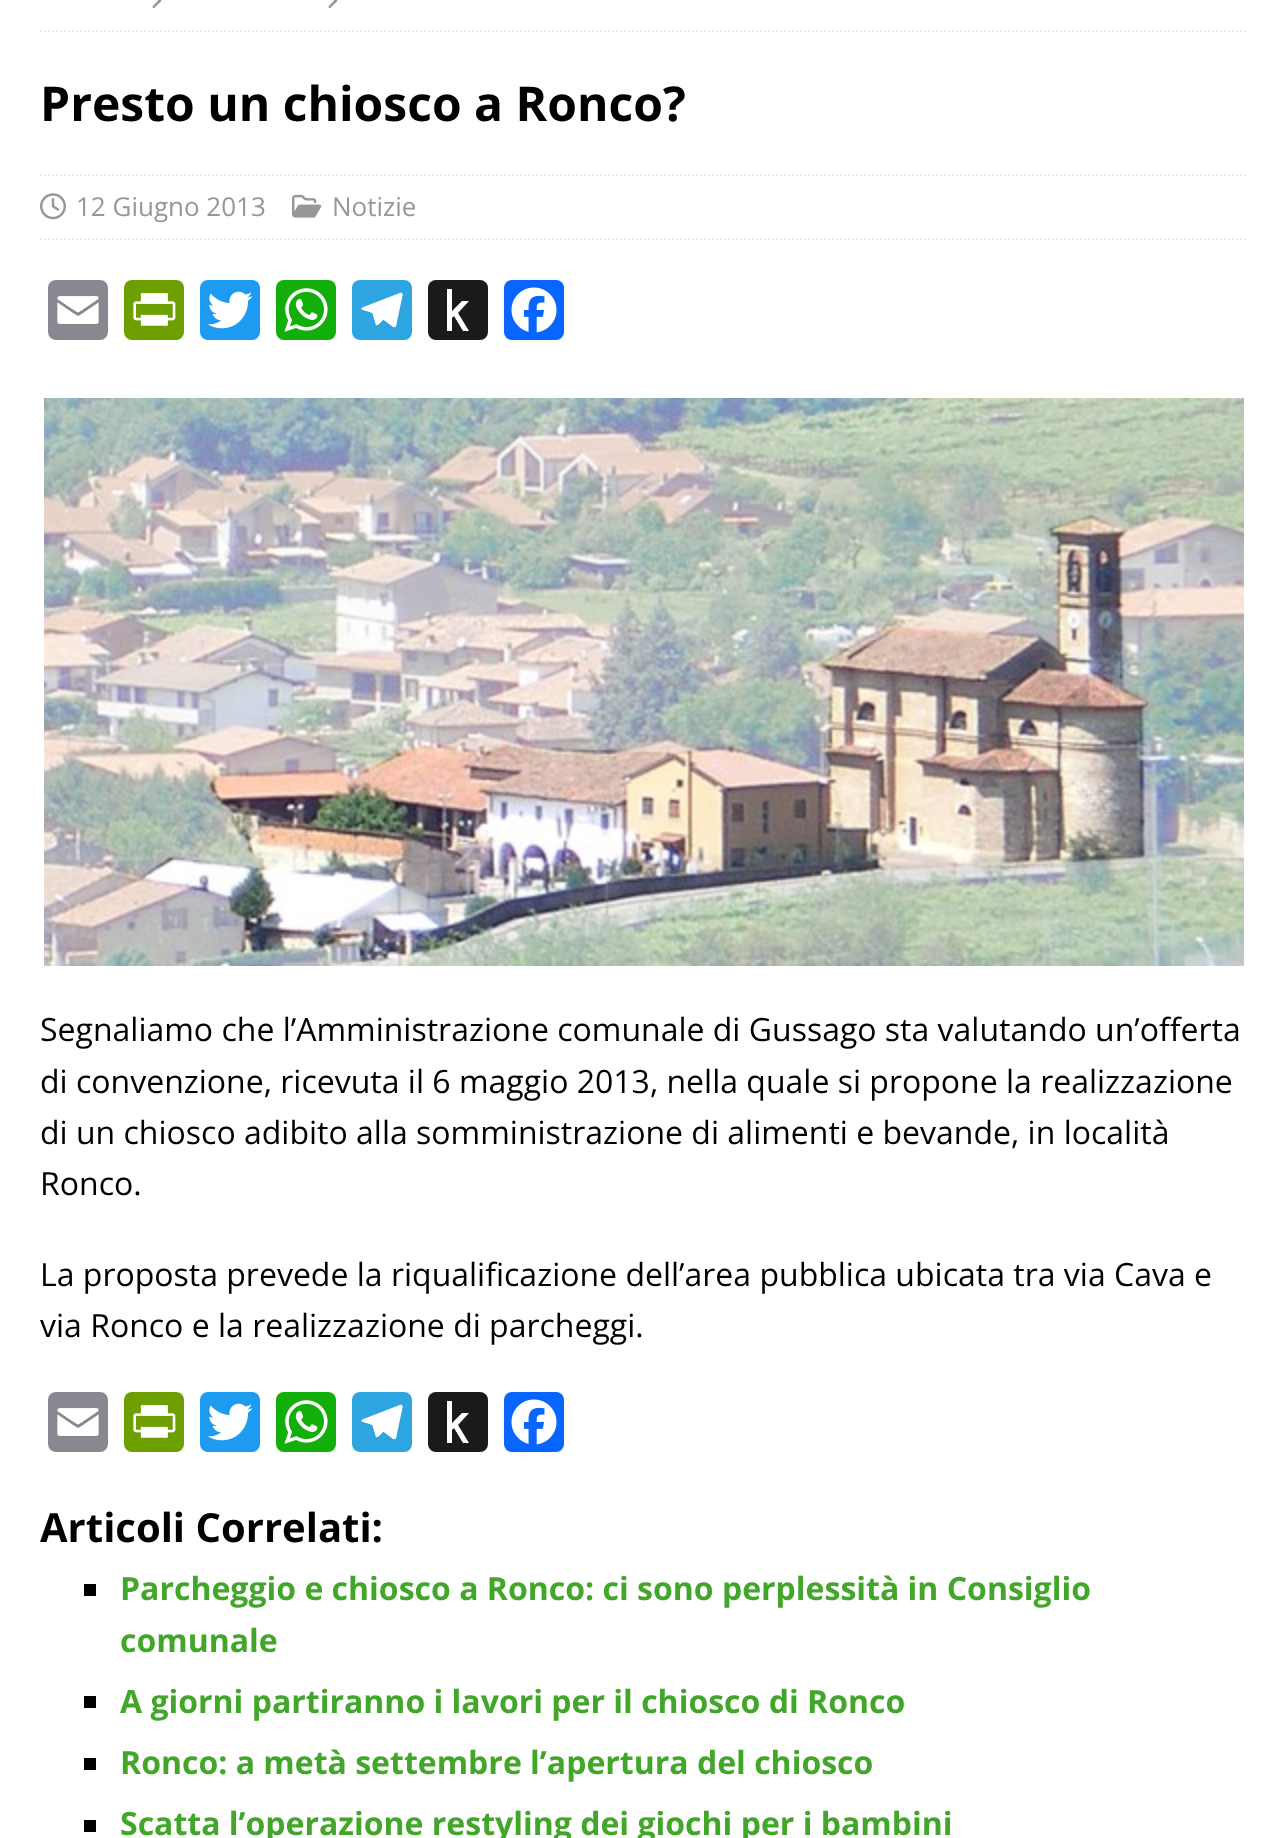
<svg xmlns="http://www.w3.org/2000/svg" width="1288" height="1838">
<style>
.a{font:bold 48px Open Sans;fill:#000}
.b{font:26px Open Sans;fill:#979797}
.c{font:32px Open Sans;fill:#000}
.d{font:bold 40px Open Sans;fill:#000}
.e{font:bold 32px Open Sans;fill:#42a62a}
</style>
<rect width="100%" height="100%" fill="#fff"/>
<path fill="none" stroke="#ebebeb" stroke-width="2" stroke-dasharray="2 2" d="M40 31h1208"/>
<image href="1.png" x="152" y="0" width="10" height="8"/>
<image href="1.png" x="328" y="0" width="10" height="8"/>
<path fill="none" stroke="#ebebeb" stroke-width="2" stroke-dasharray="2 2" d="M40 175h1208"/>
<path fill="none" stroke="#ebebeb" stroke-width="2" stroke-dasharray="2 2" d="M40 239h1208"/>
<image href="2.png" x="40" y="193" width="26" height="27"/>
<image href="3.png" x="292" y="194" width="30" height="24"/>
<rect fill="#888990" x="48" y="280" width="60" height="60" rx="8"/>
<image href="4.png" x="57" y="296" width="42" height="28"/>
<rect fill="#6d9f00" x="124" y="280" width="60" height="60" rx="8"/>
<image href="5.png" x="133" y="293" width="43" height="33"/>
<rect fill="#1d9bf0" x="200" y="280" width="60" height="60" rx="8"/>
<image href="6.png" x="207" y="291" width="46" height="38"/>
<rect fill="#12af0a" x="276" y="280" width="60" height="60" rx="8"/>
<image href="7.png" x="284" y="288" width="44" height="44"/>
<rect fill="#2ca5e0" x="352" y="280" width="60" height="60" rx="8"/>
<image href="8.png" x="361" y="292" width="42" height="36"/>
<rect fill="#1a1a1a" x="428" y="280" width="60" height="60" rx="8"/>
<path fill="#fff" d="M452 331h-5v-42h5v22l10-10h7l-11 12l11 18h-6l-9-15l-2 2z"/>
<rect fill="#0866ff" x="504" y="280" width="60" height="60" rx="8"/>
<image href="9.png" x="511" y="287" width="46" height="46"/>
<image href="10.png" x="44" y="398" width="1200" height="568"/>
<rect fill="#888990" x="48" y="1392" width="60" height="60" rx="8"/>
<image href="4.png" x="57" y="1408" width="42" height="28"/>
<rect fill="#6d9f00" x="124" y="1392" width="60" height="60" rx="8"/>
<image href="5.png" x="133" y="1405" width="43" height="33"/>
<rect fill="#1d9bf0" x="200" y="1392" width="60" height="60" rx="8"/>
<image href="6.png" x="207" y="1403" width="46" height="38"/>
<rect fill="#12af0a" x="276" y="1392" width="60" height="60" rx="8"/>
<image href="7.png" x="284" y="1400" width="44" height="44"/>
<rect fill="#2ca5e0" x="352" y="1392" width="60" height="60" rx="8"/>
<image href="8.png" x="361" y="1404" width="42" height="36"/>
<rect fill="#1a1a1a" x="428" y="1392" width="60" height="60" rx="8"/>
<path fill="#fff" d="M452 1443h-5v-42h5v22l10-10h7l-11 12l11 18h-6l-9-15l-2 2z"/>
<rect fill="#0866ff" x="504" y="1392" width="60" height="60" rx="8"/>
<image href="9.png" x="511" y="1399" width="46" height="46"/>
<path fill="#000" d="M84 1584h12v12H84z"/>
<path fill="#000" d="M84 1696h12v12H84z"/>
<path fill="#000" d="M84 1758h12v12H84z"/>
<path fill="#000" d="M84 1820h12v12H84z"/>
<text class="a" x="40" y="121">Presto un chiosco a Ronco?</text>
<text class="b" x="76" y="216">12 Giugno 2013</text>
<text class="b" x="332" y="216">Notizie</text>
<text class="c" x="40" y="1041">Segnaliamo che l’Amministrazione comunale di Gussago sta valutando un’offerta</text>
<text class="c" x="40" y="1093">di convenzione, ricevuta il 6 maggio 2013, nella quale si propone la realizzazione</text>
<text class="c" x="40" y="1144">di un chiosco adibito alla somministrazione di alimenti e bevande, in località</text>
<text class="c" x="40" y="1195">Ronco.</text>
<text class="c" x="40" y="1286">La proposta prevede la riqualificazione dell’area pubblica ubicata tra via Cava e</text>
<text class="c" x="40" y="1337">via Ronco e la realizzazione di parcheggi.</text>
<text class="d" x="40" y="1542">Articoli Correlati:</text>
<text class="e" x="120" y="1600">Parcheggio e chiosco a Ronco: ci sono perplessità in Consiglio</text>
<text class="e" x="120" y="1652">comunale</text>
<text class="e" x="120" y="1713">A giorni partiranno i lavori per il chiosco di Ronco</text>
<text class="e" x="120" y="1774">Ronco: a metà settembre l’apertura del chiosco</text>
<text class="e" x="120" y="1835">Scatta l’operazione restyling dei giochi per i bambini</text>
</svg>
